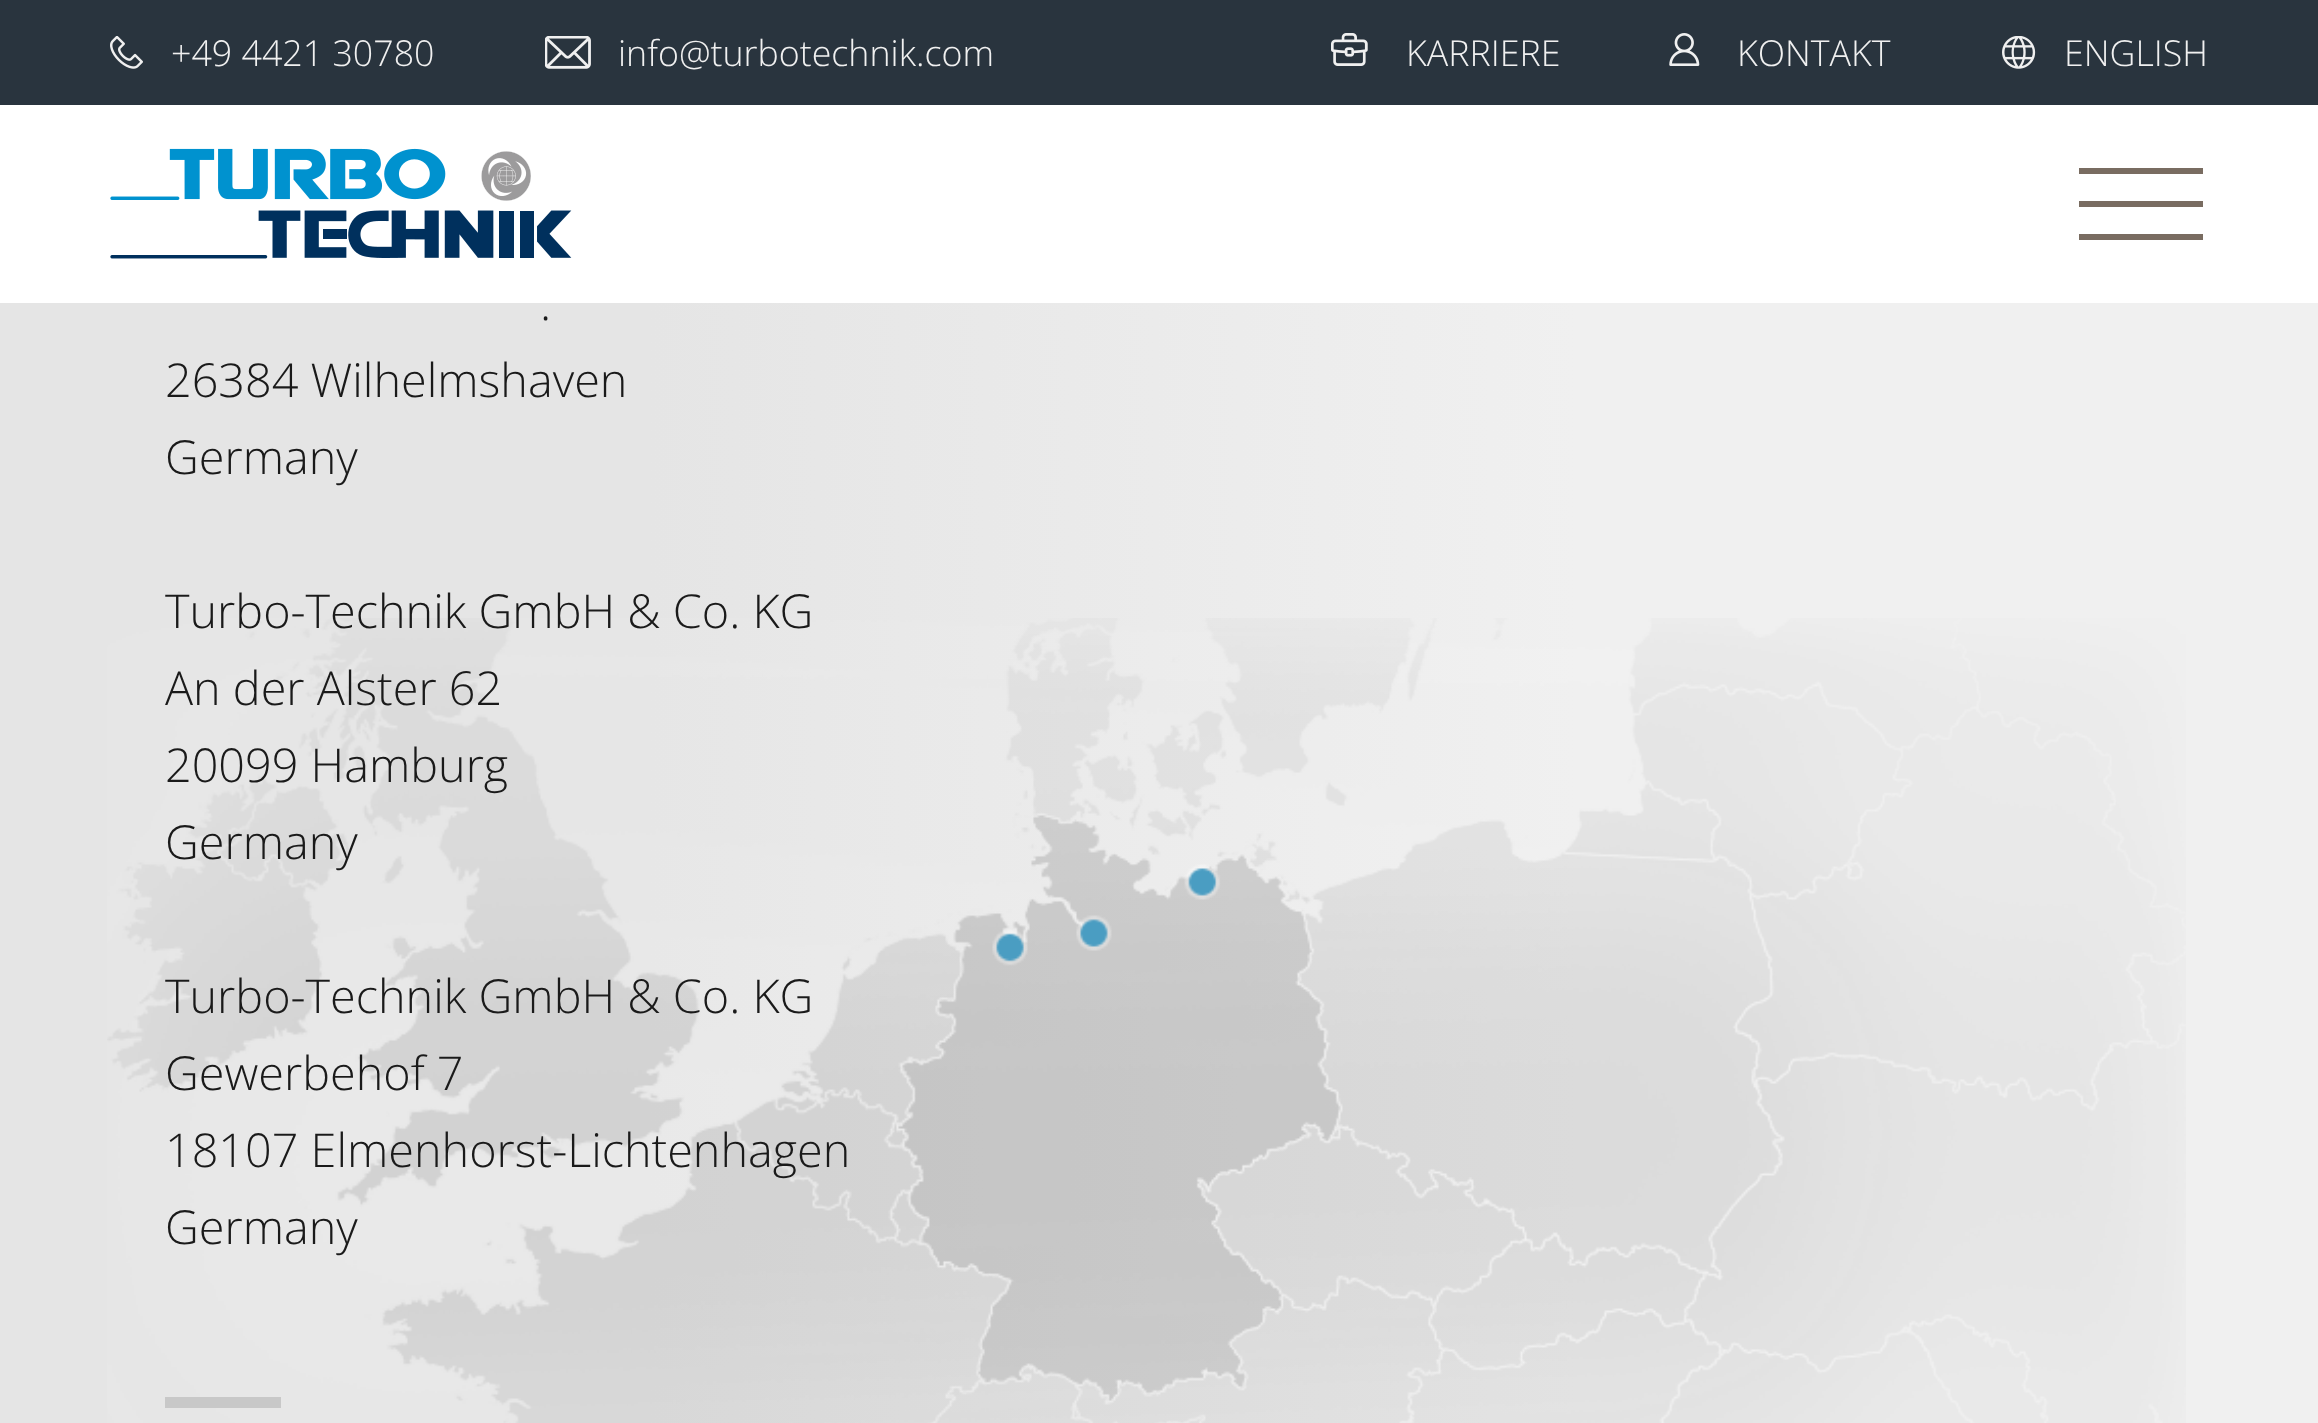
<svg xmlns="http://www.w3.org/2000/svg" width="2318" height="1423">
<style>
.a{font:300 35.75px Open Sans;fill:#f0f0f0}
.b{font:300 46.75px Open Sans;fill:#1a1a1a}
</style>
<defs>
<linearGradient id="g1" gradientUnits="userSpaceOnUse" x1="0" y1="1059" x2="2318" y2="1059"><stop offset="0.28" stop-color="#e5e5e5"/><stop offset="0.68" stop-color="#f0f0f0"/></linearGradient>
</defs>
<rect width="100%" height="100%" fill="#fff"/>
<path fill="#29343e" d="M0 0h2318v105H0z"/>
<image href="1.png" x="110" y="36" width="33" height="33"/>
<image href="2.png" x="545" y="36" width="46" height="33"/>
<image href="3.png" x="1331" y="33" width="37" height="33"/>
<image href="4.png" x="1669" y="33" width="31" height="33"/>
<image href="5.png" x="2002" y="36" width="34" height="33"/>
<image href="6.png" x="110" y="148" width="462" height="111"/>
<path fill="#796c61" d="M2079 201h124v6H2079z"/>
<path fill="#796c61" d="M2079 168h124v6H2079z"/>
<path fill="#796c61" d="M2079 234h124v6H2079z"/>
<path fill="url(#g1)" d="M0 303h2318v1120H0z"/>
<image href="7.png" x="107" y="618" width="2079" height="805"/>
<path fill="#c8c8c8" d="M165 1397h116v11H165z"/>
<text class="a" x="171" y="66">+49 4421 30780</text>
<text class="a" x="618" y="66">info@turbotechnik.com</text>
<text class="a" x="1406" y="66">KARRIERE</text>
<text class="a" x="1737" y="66">KONTAKT</text>
<text class="a" x="2064" y="66">ENGLISH</text>
<text class="b" x="540" y="320">.</text>
<text class="b" x="165" y="397">26384 Wilhelmshaven</text>
<text class="b" x="165" y="474">Germany</text>
<text class="b" x="165" y="628">Turbo-Technik GmbH &amp; Co. KG</text>
<text class="b" x="165" y="705">An der Alster 62</text>
<text class="b" x="165" y="782">20099 Hamburg</text>
<text class="b" x="165" y="859">Germany</text>
<text class="b" x="165" y="1013">Turbo-Technik GmbH &amp; Co. KG</text>
<text class="b" x="165" y="1090">Gewerbehof 7</text>
<text class="b" x="165" y="1167">18107 Elmenhorst-Lichtenhagen</text>
<text class="b" x="165" y="1244">Germany</text>
</svg>
